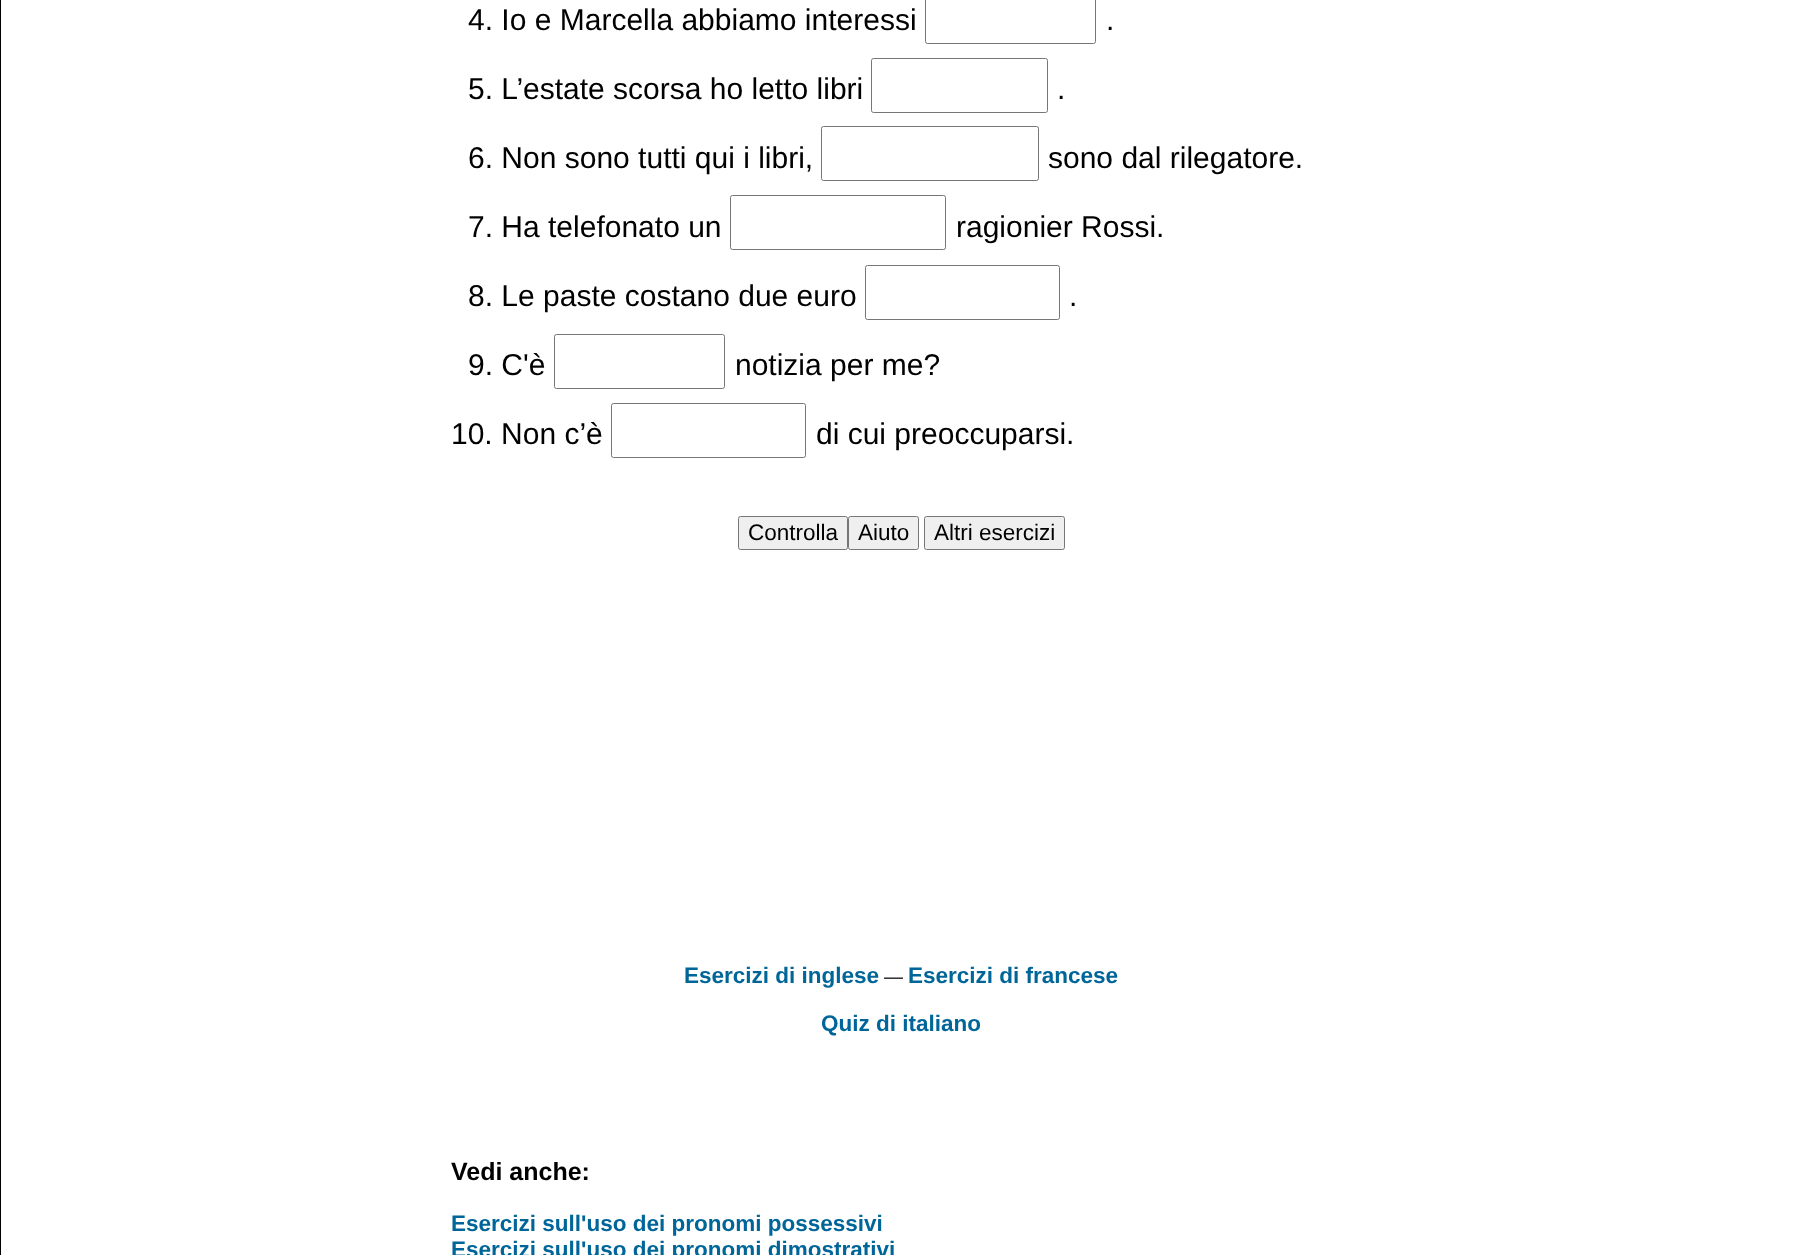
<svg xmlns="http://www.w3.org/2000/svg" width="1802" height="1255">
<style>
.a{font:30px Liberation Sans;fill:#000}
.b{font:22.5px Liberation Sans;fill:#000}
.c{font:bold 22.5px Liberation Sans;fill:#069}
.d{font:19px Liberation Sans;fill:#000}
.e{font:bold 25px Liberation Sans;fill:#000}
</style>
<rect width="100%" height="100%" fill="#fff"/>
<path fill="none" stroke="#000" d="M0.5 -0.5h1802v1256H0.5z"/>
<rect fill="none" stroke="#767676" x="925.5" y="-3.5" width="170" height="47" rx="2"/>
<rect fill="none" stroke="#767676" x="871.5" y="58.5" width="176" height="54" rx="2"/>
<rect fill="none" stroke="#767676" x="821.5" y="126.5" width="217" height="54" rx="2"/>
<rect fill="none" stroke="#767676" x="730.5" y="195.5" width="215" height="54" rx="2"/>
<rect fill="none" stroke="#767676" x="865.5" y="265.5" width="194" height="54" rx="2"/>
<rect fill="none" stroke="#767676" x="554.5" y="334.5" width="170" height="54" rx="2"/>
<rect fill="none" stroke="#767676" x="611.5" y="403.5" width="194" height="54" rx="2"/>
<rect fill="#efefef" stroke="#767676" x="738.5" y="516.5" width="109" height="33" rx="2"/>
<rect fill="#efefef" stroke="#767676" x="848.5" y="516.5" width="70" height="33" rx="2"/>
<rect fill="#efefef" stroke="#767676" x="924.5" y="516.5" width="140" height="33" rx="2"/>
<text class="a" x="468" y="30">4. Io e Marcella abbiamo interessi</text>
<text class="a" x="1106" y="30">.</text>
<text class="a" x="468" y="99">5. L’estate scorsa ho letto libri</text>
<text class="a" x="1057" y="99">.</text>
<text class="a" x="468" y="168">6. Non sono tutti qui i libri,</text>
<text class="a" x="1048" y="168">sono dal rilegatore.</text>
<text class="a" x="468" y="237">7. Ha telefonato un</text>
<text class="a" x="956" y="237">ragionier Rossi.</text>
<text class="a" x="468" y="306">8. Le paste costano due euro</text>
<text class="a" x="1069" y="306">.</text>
<text class="a" x="468" y="375">9. C'è</text>
<text class="a" x="735" y="375">notizia per me?</text>
<text class="a" x="451" y="444">10. Non c’è</text>
<text class="a" x="816" y="444">di cui preoccuparsi.</text>
<text class="b" x="748" y="540">Controlla</text>
<text class="b" x="858" y="540">Aiuto</text>
<text class="b" x="934" y="540">Altri esercizi</text>
<text class="c" x="684" y="983">Esercizi di inglese</text>
<text class="d" x="884" y="983">—</text>
<text class="c" x="908" y="983">Esercizi di francese</text>
<text class="c" x="821" y="1031">Quiz di italiano</text>
<text class="e" x="451" y="1180">Vedi anche:</text>
<text class="c" x="451" y="1231">Esercizi sull'uso dei pronomi possessivi</text>
<text class="c" x="451" y="1257">Esercizi sull'uso dei pronomi dimostrativi</text>
</svg>
